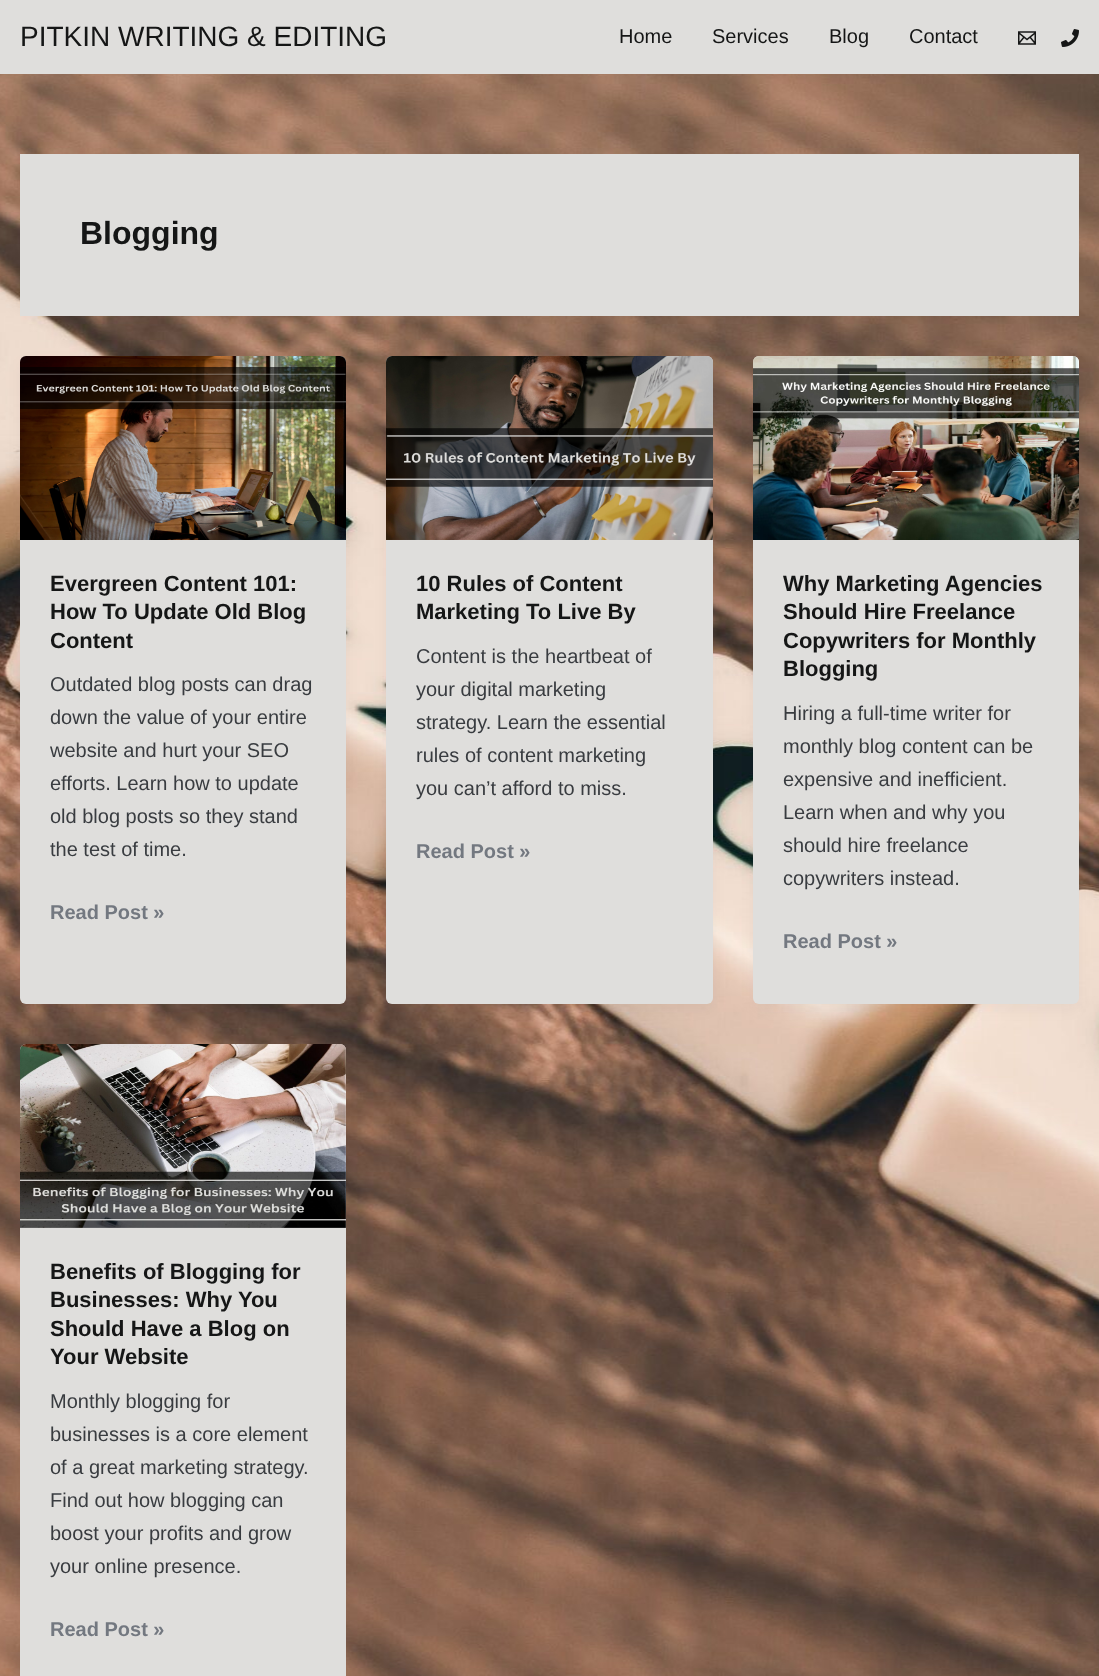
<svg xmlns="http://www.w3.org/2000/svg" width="1099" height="1676">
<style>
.a{font:28px Liberation Sans;fill:#151616}
.b{font:20px Liberation Sans;fill:#151616}
.c{font:bold 32px Liberation Sans;fill:#151616}
.d{font:bold 22px Liberation Sans;fill:#151616}
.e{font:20px Liberation Sans;fill:#393c40}
.f{font:bold 20px Liberation Sans;fill:#737880}
</style>
<rect width="100%" height="100%" fill="#fff"/>
<image href="1.png" x="0" y="74" width="1099" height="1602"/>
<path fill="#dfdedc" d="M0 0h1099v74H0z"/>
<image href="2.png" x="1018" y="31" width="18" height="14"/>
<image href="3.png" x="1061" y="29" width="18" height="18"/>
<path fill="#dfdedc" d="M20 154h1059v162H20z"/>
<rect fill="#1018280d" filter="blur(7.5px)" x="22" y="364" width="322" height="644" rx="4"/>
<image href="4.png" x="20" y="356" width="326" height="648"/>
<image href="5.png" x="20" y="356" width="326" height="184"/>
<rect fill="#1018280d" filter="blur(7.5px)" x="388" y="364" width="323" height="644" rx="4"/>
<image href="6.png" x="386" y="356" width="327" height="648"/>
<image href="7.png" x="386" y="356" width="327" height="184"/>
<rect fill="#1018280d" filter="blur(7.5px)" x="755" y="364" width="322" height="644" rx="4"/>
<image href="8.png" x="753" y="356" width="326" height="648"/>
<image href="9.png" x="753" y="356" width="326" height="184"/>
<image href="10.png" x="20" y="1044" width="326" height="632"/>
<image href="11.png" x="20" y="1044" width="326" height="184"/>
<text class="a" x="20" y="46">PITKIN WRITING &amp; EDITING</text>
<text class="b" x="619" y="43">Home</text>
<text class="b" x="712" y="43">Services</text>
<text class="b" x="829" y="43">Blog</text>
<text class="b" x="909" y="43">Contact</text>
<text class="c" x="80" y="244">Blogging</text>
<text class="d" x="50" y="591">Evergreen Content 101:</text>
<text class="d" x="50" y="619">How To Update Old Blog</text>
<text class="d" x="50" y="648">Content</text>
<text class="e" x="50" y="691">Outdated blog posts can drag</text>
<text class="e" x="50" y="724">down the value of your entire</text>
<text class="e" x="50" y="757">website and hurt your SEO</text>
<text class="e" x="50" y="790">efforts. Learn how to update</text>
<text class="e" x="50" y="823">old blog posts so they stand</text>
<text class="e" x="50" y="856">the test of time.</text>
<text class="f" x="50" y="919">Read Post »</text>
<text class="d" x="416" y="591">10 Rules of Content</text>
<text class="d" x="416" y="619">Marketing To Live By</text>
<text class="e" x="416" y="663">Content is the heartbeat of</text>
<text class="e" x="416" y="696">your digital marketing</text>
<text class="e" x="416" y="729">strategy. Learn the essential</text>
<text class="e" x="416" y="762">rules of content marketing</text>
<text class="e" x="416" y="795">you can’t afford to miss.</text>
<text class="f" x="416" y="858">Read Post »</text>
<text class="d" x="783" y="591">Why Marketing Agencies</text>
<text class="d" x="783" y="619">Should Hire Freelance</text>
<text class="d" x="783" y="648">Copywriters for Monthly</text>
<text class="d" x="783" y="676">Blogging</text>
<text class="e" x="783" y="720">Hiring a full-time writer for</text>
<text class="e" x="783" y="753">monthly blog content can be</text>
<text class="e" x="783" y="786">expensive and inefficient.</text>
<text class="e" x="783" y="819">Learn when and why you</text>
<text class="e" x="783" y="852">should hire freelance</text>
<text class="e" x="783" y="885">copywriters instead.</text>
<text class="f" x="783" y="948">Read Post »</text>
<text class="d" x="50" y="1279">Benefits of Blogging for</text>
<text class="d" x="50" y="1307">Businesses: Why You</text>
<text class="d" x="50" y="1336">Should Have a Blog on</text>
<text class="d" x="50" y="1364">Your Website</text>
<text class="e" x="50" y="1408">Monthly blogging for</text>
<text class="e" x="50" y="1441">businesses is a core element</text>
<text class="e" x="50" y="1474">of a great marketing strategy.</text>
<text class="e" x="50" y="1507">Find out how blogging can</text>
<text class="e" x="50" y="1540">boost your profits and grow</text>
<text class="e" x="50" y="1573">your online presence.</text>
<text class="f" x="50" y="1636">Read Post »</text>
</svg>
